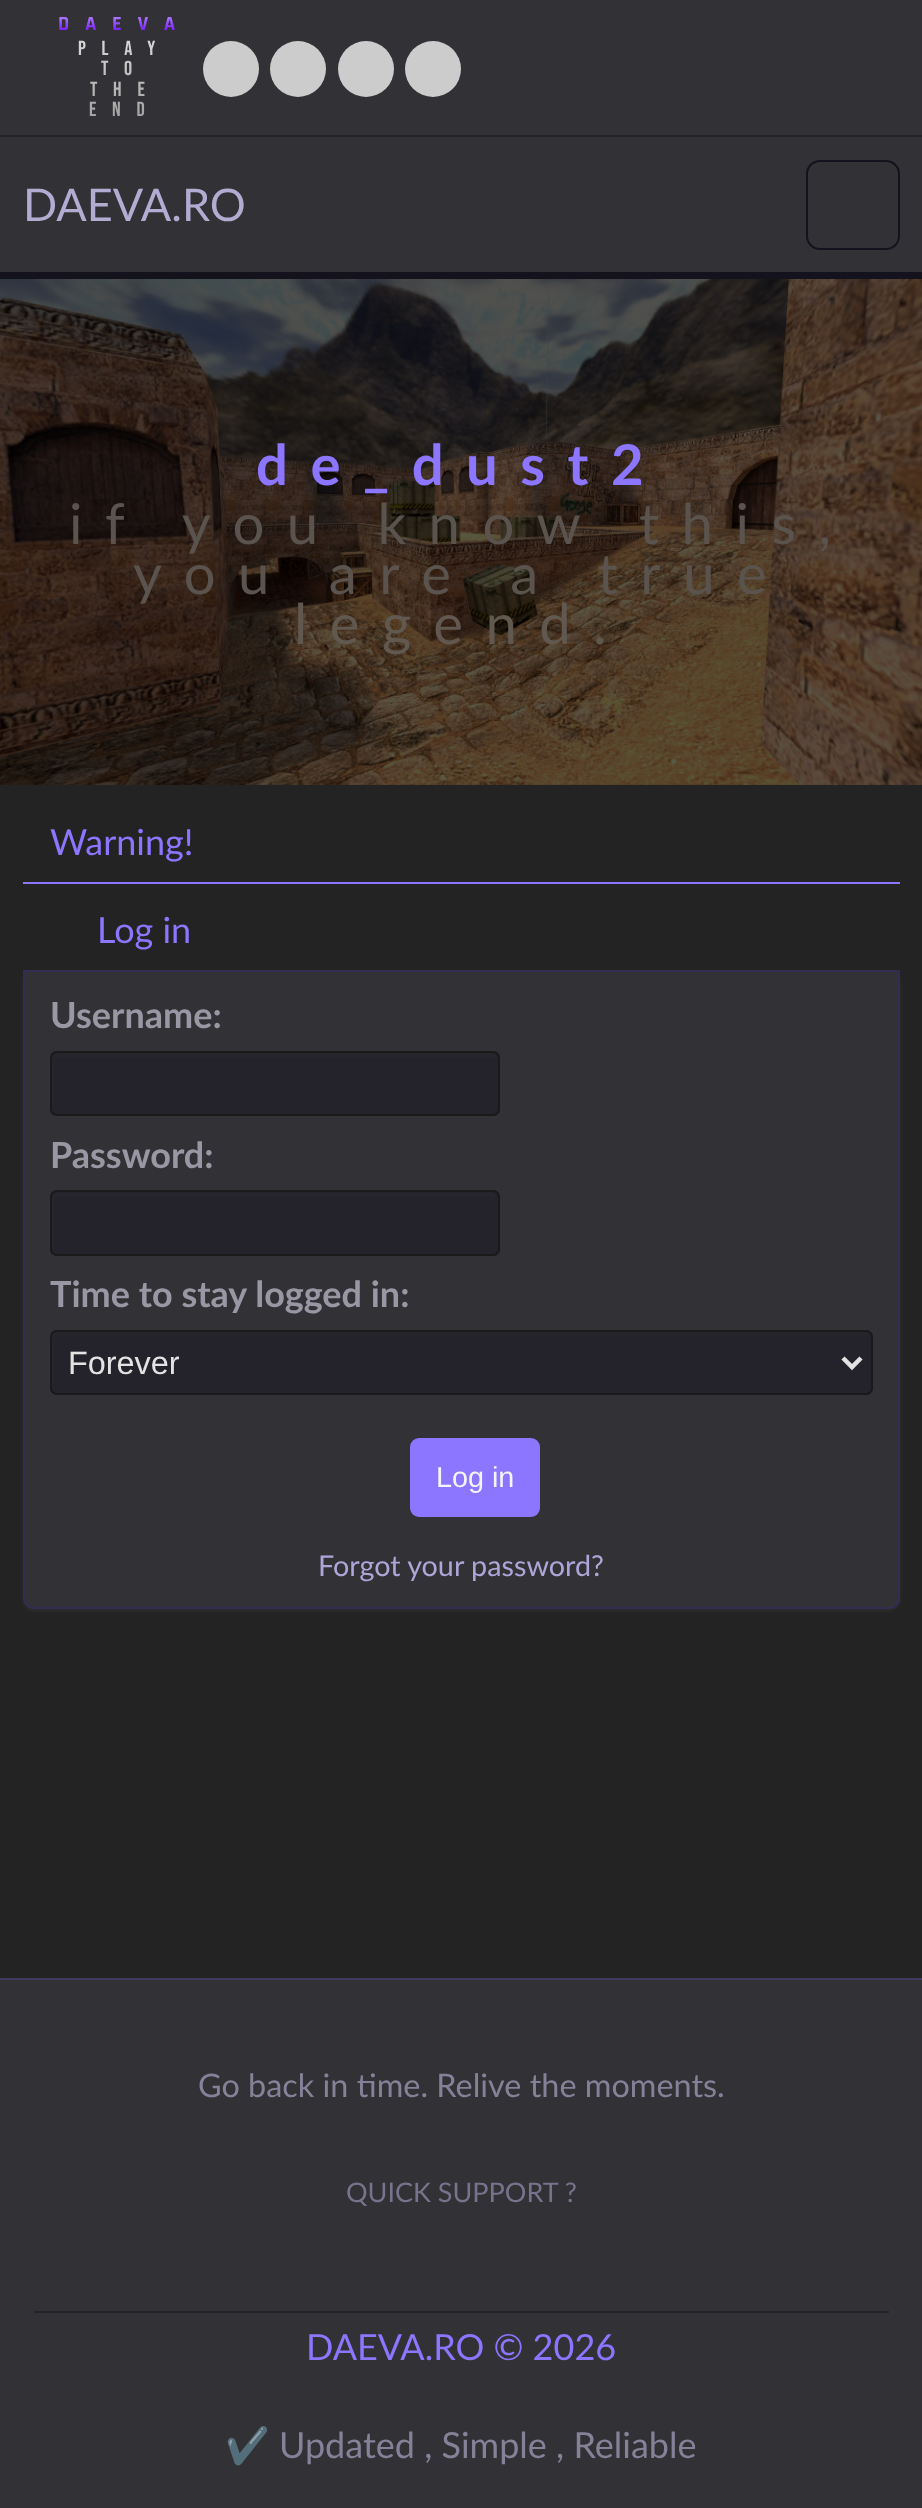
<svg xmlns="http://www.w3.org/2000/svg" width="922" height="2508">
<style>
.a{font:bold 20.25px Rajdhani;letter-spacing:15.75px;fill:url(#g1)}
.b{font:20.25px Bebas Neue;letter-spacing:15.75px;fill:url(#g2)}
.c{font:45px Lato;fill:#b3acd2}
.d{font:bold 56.25px Lato;letter-spacing:22.5px;fill:#8c75ff}
.e{font:56.25px Lato;letter-spacing:22.5px;fill:#5a534e}
.f{font:56.25px Lato;letter-spacing:22.5px;fill:#615850}
.g{font:36px Lato;fill:#8c75ff}
.h{font:bold 36px Lato;fill:#9a97a5}
.i{font:32.4px Liberation Sans;fill:#e3e3e3}
.j{font:28.75px Liberation Sans;fill:#f5f5f5}
.k{font:28.75px Lato;fill:#aea6d9}
.l{font:32.4px Lato;fill:#858198}
.m{font:27px Lato;fill:#77738c}
.n{font:36px Noto Color Emoji;fill:#858198}
.o{font:36px Lato;fill:#858198}
</style>
<defs>
<linearGradient id="g1" gradientUnits="userSpaceOnUse" x1="125" y1="15" x2="125" y2="35"><stop offset="0" stop-color="#b682ff"/><stop offset="1" stop-color="#6a00ff"/></linearGradient>
<linearGradient id="g2" gradientUnits="userSpaceOnUse" x1="125" y1="39" x2="125" y2="120"><stop offset="0" stop-color="#d8d8d8"/><stop offset="1" stop-color="#a0a0a0"/></linearGradient>
</defs>
<rect width="100%" height="100%" fill="#232324"/>
<path fill="#323135" d="M0 0h922v135H0z"/>
<path fill="#24232a" d="M0 135h922v2H0z"/>
<circle fill="#ccc" cx="231" cy="69" r="28"/>
<circle fill="#ccc" cx="298" cy="69" r="28"/>
<circle fill="#ccc" cx="366" cy="69" r="28"/>
<circle fill="#ccc" cx="433" cy="69" r="28"/>
<path fill="#323135" d="M0 137h922v135H0z"/>
<path fill="#14121c" d="M0 272h922v7H0z"/>
<rect fill="none" stroke="#14121c" stroke-width="2" x="807" y="161" width="92" height="88" rx="13"/>
<image href="1.png" x="0" y="279" width="922" height="506"/>
<path fill="#8c75ff" d="M23 882h877v2H23z"/>
<rect fill="#ffffff0d" filter="blur(2px)" x="23" y="972" width="877" height="639" rx="11"/>
<path fill="#323135" stroke="#332d53" stroke-width="2" d="M24 971h875v627c0 5.5-4.5 10-10 10h-855c-5.5 0-10-4.5-10-10z"/>
<rect fill="#24222a" x="50" y="1051" width="450" height="65" rx="7"/>
<path fill="#26252b" d="M58 1058h437l2 1v-1c0-3-2-5-5-5h-435c-3 0-5 2-5 5v51c0 2 1 3 2 4v-51c0-2 2-4 4-4z"/>
<rect fill="none" stroke="#1a1a1a" stroke-width="2" x="51" y="1052" width="448" height="63" rx="6"/>
<rect fill="#24222a" x="50" y="1190" width="450" height="66" rx="7"/>
<path fill="#26252b" d="M58 1197h437l2 1c0-3-2-5-5-5h-435c-3 0-5 2-5 5v50c0 2 1 3 2 4v-50c0-3 2-5 4-5z"/>
<rect fill="none" stroke="#1a1a1a" stroke-width="2" x="51" y="1191" width="448" height="64" rx="6"/>
<rect fill="#24222a" x="50" y="1330" width="823" height="65" rx="7"/>
<path fill="#26252b" d="M58 1336h810l3 1c0-3-2-5-5-5h-809c-3 0-5 2-5 5v51c0 2 1 3 2 4v-51c0-2 2-5 4-5z"/>
<rect fill="none" stroke="#1a1a1a" stroke-width="2" x="51" y="1331" width="821" height="63" rx="6"/>
<path fill="none" stroke="#e3e3e3" stroke-width="4.5" d="M843 1358l9 9l9-9"/>
<rect fill="#8c75ff" x="410" y="1438" width="130" height="79" rx="9"/>
<path fill="#323135" d="M0 1980h922v528H0z"/>
<path fill="#403960" d="M0 1978h922v2H0z"/>
<path fill="#24232a" d="M34 2311h855v2H34z"/>
<text class="a" x="58" y="30">DAEVA</text>
<text class="b" x="78" y="55">PLAY</text>
<text class="b" x="101" y="75">TO</text>
<text class="b" x="90" y="96">THE</text>
<text class="b" x="89" y="116">END</text>
<text class="c" x="23" y="221">DAEVA.RO</text>
<text class="d" x="256" y="485">de_dust2</text>
<text class="e" x="69" y="544">if you know this,</text>
<text class="e" x="133" y="594">you are a true</text>
<text class="f" x="294" y="644">legend.</text>
<text class="g" x="50" y="855">Warning!</text>
<text class="g" x="97" y="943">Log in</text>
<text class="h" x="50" y="1028">Username:</text>
<text class="h" x="50" y="1168">Password:</text>
<text class="h" x="50" y="1307">Time to stay logged in:</text>
<text class="i" x="68" y="1374">Forever</text>
<text class="j" x="436" y="1487">Log in</text>
<text class="k" x="318" y="1576">Forgot your password?</text>
<text class="l" x="198" y="2097">Go back in time. Relive the moments.</text>
<text class="m" x="346" y="2202">QUICK SUPPORT ?</text>
<text class="g" x="306" y="2360">DAEVA.RO © 2026</text>
<text class="n" x="225" y="2458">✔️</text>
<text class="o" x="279" y="2458">Updated , Simple , Reliable</text>
</svg>
